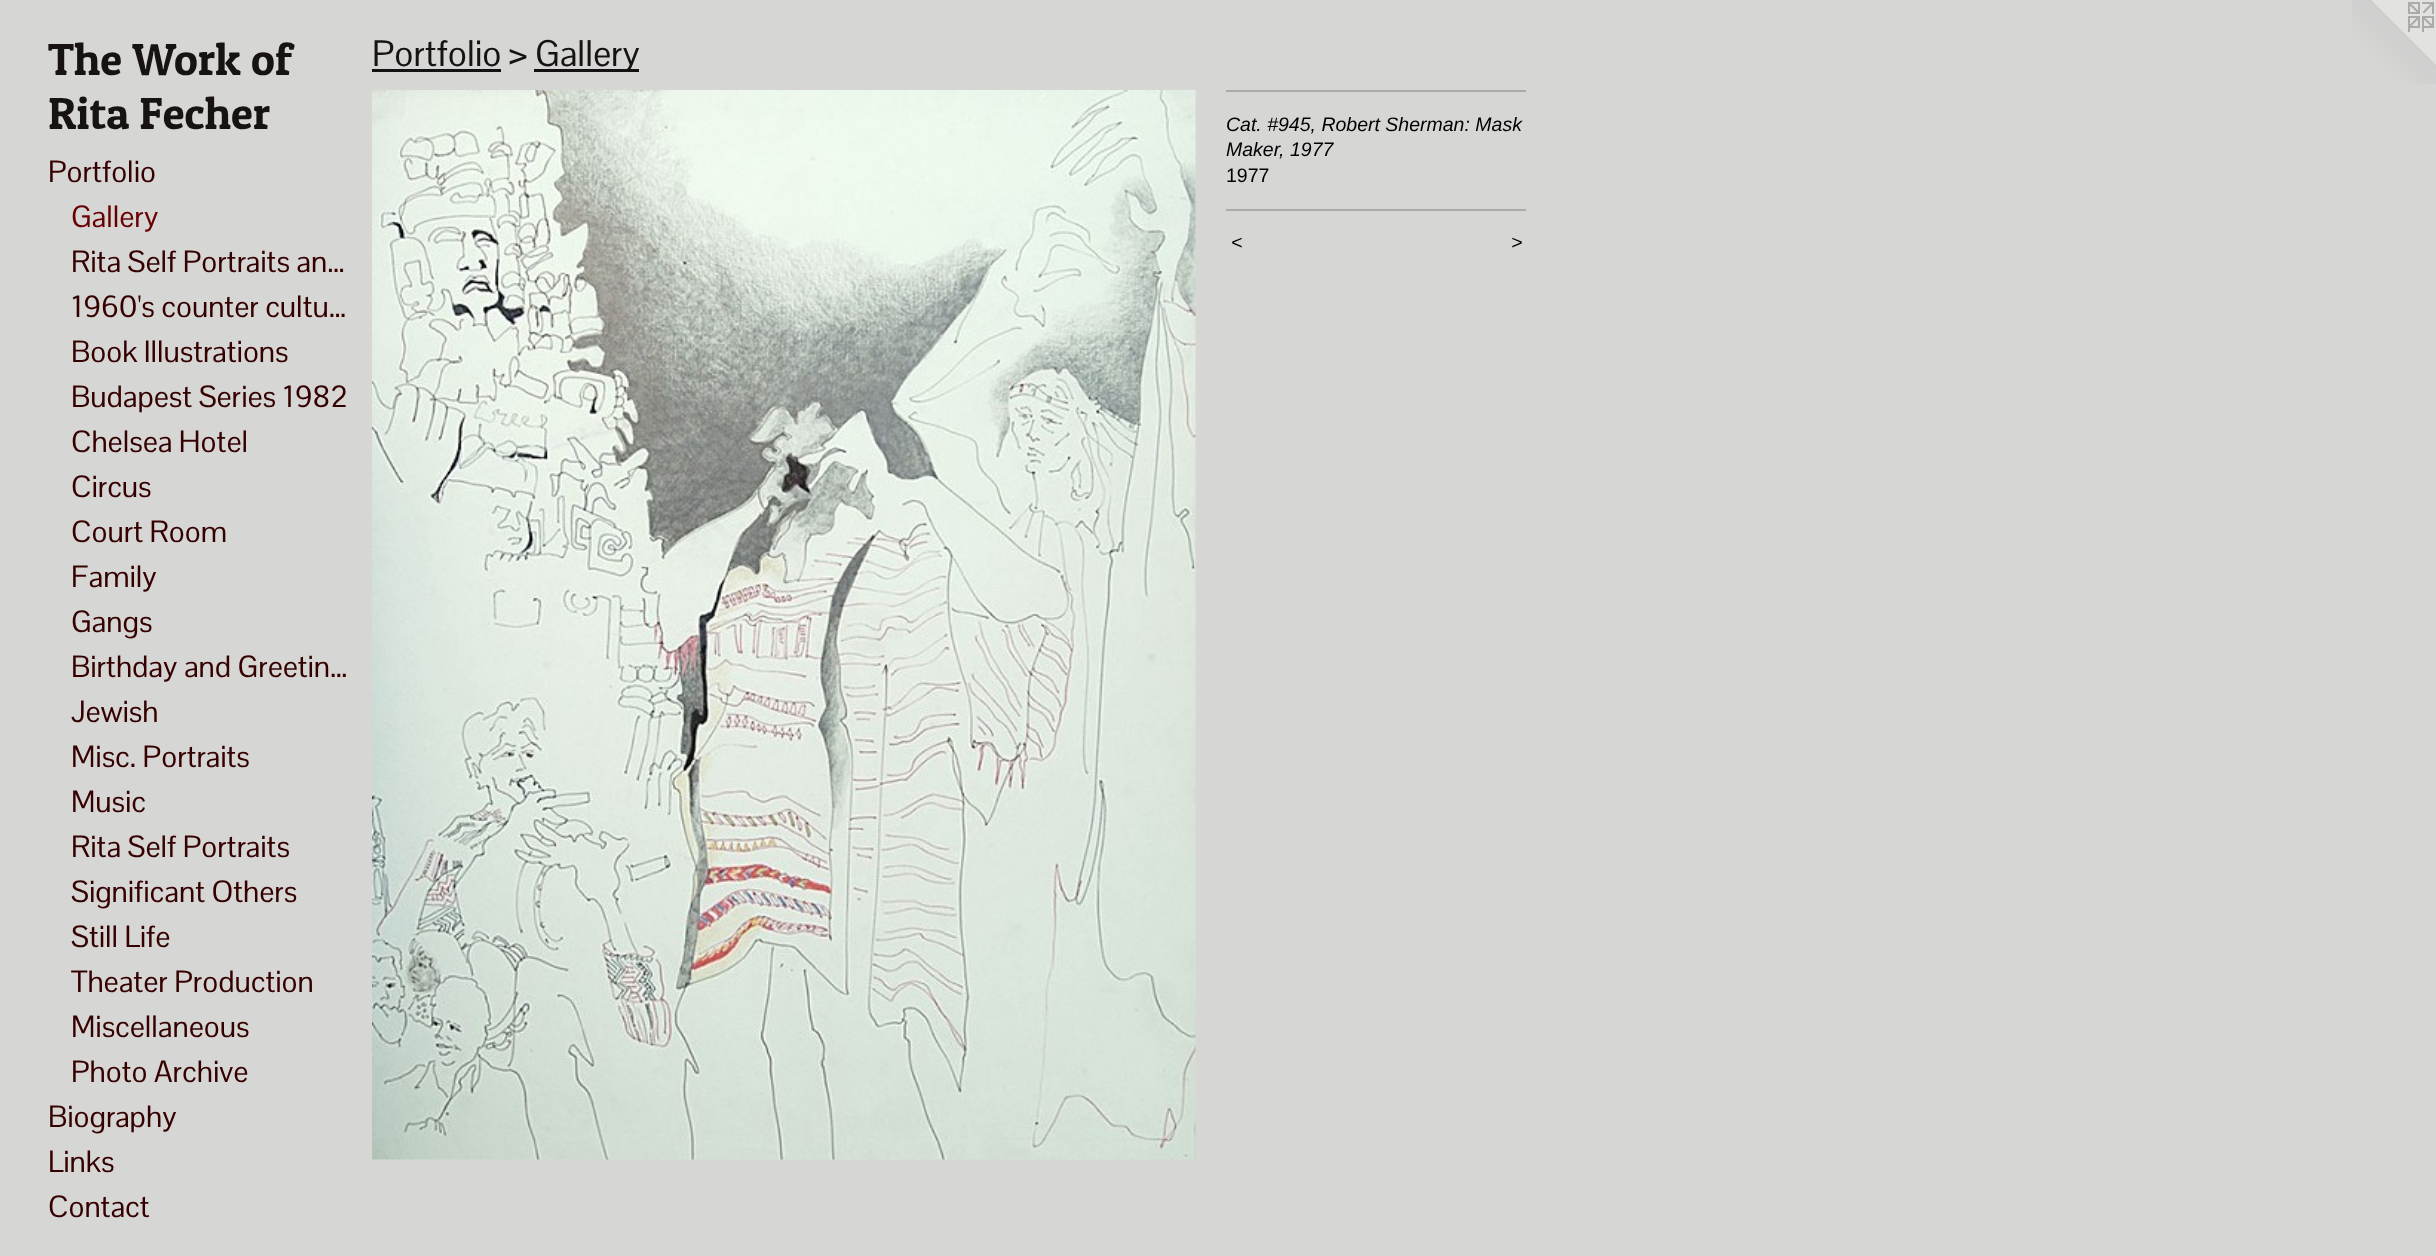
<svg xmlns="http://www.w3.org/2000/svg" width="2436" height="1256">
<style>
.a{font:45px Patua One;fill:#171313}
.b{font:30px Pontano Sans;fill:#350000}
.c{font:30px Pontano Sans;fill:#680000}
.d{font:36px Pontano Sans;fill:#171313}
.e{font:italic 19.5px Liberation Sans;fill:#000}
.f{font:19.5px Liberation Sans;fill:#000}
.g{font:italic 19.5px Liberation Sans;letter-spacing:2px;fill:#000}
</style>
<defs>
<clipPath id="clip1"><path d="M71 960h277v45H71z"/></clipPath>
</defs>
<rect width="100%" height="100%" fill="#d6d6d5"/>
<path fill="#131111" d="M372 69h129v3H372z"/>
<path fill="#131111" d="M534 69h105v3H534z"/>
<image href="1.png" x="372" y="90" width="824" height="1070"/>
<path fill="#ababaa" d="M1226 90h300v2H1226z"/>
<path fill="#ababaa" d="M1226 209h300v2H1226z"/>
<image href="2.png" x="2352" y="0" width="84" height="84"/>
<text class="a" x="48" y="75">The Work of</text>
<text class="a" x="48" y="129">Rita Fecher</text>
<text class="b" x="48" y="182">Portfolio</text>
<text class="c" x="71" y="227">Gallery</text>
<text class="b" x="71" y="272">Rita Self Portraits an…</text>
<text class="b" x="71" y="317">1960's counter cultu…</text>
<text class="b" x="71" y="362">Book Illustrations</text>
<text class="b" x="71" y="407">Budapest Series 1982</text>
<text class="b" x="71" y="452">Chelsea Hotel</text>
<text class="b" x="71" y="497">Circus</text>
<text class="b" x="71" y="542">Court Room</text>
<text class="b" x="71" y="587">Family</text>
<text class="b" x="71" y="632">Gangs</text>
<text class="b" x="71" y="677">Birthday and Greetin…</text>
<text class="b" x="71" y="722">Jewish</text>
<text class="b" x="71" y="767">Misc. Portraits</text>
<text class="b" x="71" y="812">Music</text>
<text class="b" x="71" y="857">Rita Self Portraits</text>
<text class="b" x="71" y="902">Significant Others</text>
<text class="b" x="71" y="947">Still Life</text>
<g clip-path="url(#clip1)">
<text class="b" x="71" y="992">Theater Production</text>
</g>
<text class="b" x="71" y="1037">Miscellaneous</text>
<text class="b" x="71" y="1082">Photo Archive</text>
<text class="b" x="48" y="1127">Biography</text>
<text class="b" x="48" y="1172">Links</text>
<text class="b" x="48" y="1217">Contact</text>
<text class="d" x="372" y="66">Portfolio &gt;</text>
<text class="d" x="535" y="66">Gallery</text>
<text class="e" x="1226" y="131">Cat. #945, Robert Sherman: Mask</text>
<text class="e" x="1226" y="156">Maker, 1977</text>
<text class="f" x="1226" y="182">1977</text>
<text class="g" x="1231" y="249">&lt;</text>
<text class="g" x="1511" y="249">&gt;</text>
</svg>
